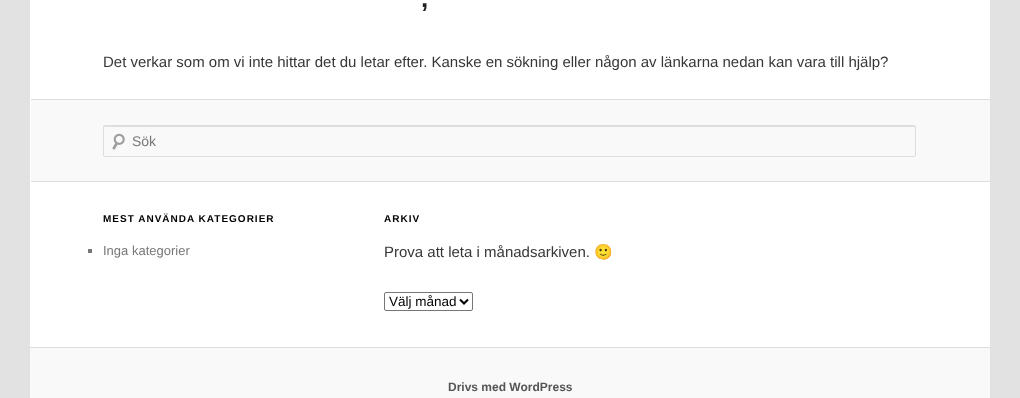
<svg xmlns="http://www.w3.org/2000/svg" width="1020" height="398">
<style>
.a{font:bold 26px Liberation Sans;fill:#222}
.b{font:15px Liberation Sans;fill:#373737}
.c{font:14px Liberation Sans;fill:#777}
.d{font:bold 10px Liberation Sans;letter-spacing:1px;fill:#000}
.e{font:13px Liberation Sans;fill:#777}
.f{font:15px Noto Color Emoji;fill:#373737}
.g{font:13.5px Liberation Sans;fill:#000}
.h{font:bold 12px Liberation Sans;fill:#555}
</style>
<rect width="100%" height="100%" fill="#e2e2e2"/>
<path fill="#fff" d="M30 0h960v347H30z"/>
<path fill="#f9f9f9" d="M31 100h959v81H31z"/>
<path fill="#ddd" d="M31 99h959v1H31z"/>
<path fill="#ddd" d="M31 181h959v1H31z"/>
<image href="1.png" x="112" y="133" width="13" height="17"/>
<path fill="#e0e0e0" fill-rule="evenodd" d="M105 126l-1 1h810l1 1c0-1 0-2-1-2zm810 29v1z"/>
<rect fill="none" stroke="#ddd" x="103.5" y="125.5" width="812" height="31" rx="1.5"/>
<path fill="#777" d="M88 249h4v4H88z"/>
<rect fill="none" stroke="#767676" x="384.5" y="292.5" width="88" height="18" rx="1.5"/>
<path fill="none" stroke="#000" stroke-width="2" d="M460 299.5l4 4l4-4"/>
<path fill="#f9f9f9" d="M30 348h960v50H30z"/>
<path fill="#ddd" d="M30 347h960v1H30z"/>
<text class="a" x="421" y="7">,</text>
<text class="b" x="103" y="67">Det verkar som om vi inte hittar det du letar efter. Kanske en sökning eller någon av länkarna nedan kan vara till hjälp?</text>
<text class="c" x="132" y="146">Sök</text>
<text class="d" x="103" y="222">MEST ANVÄNDA KATEGORIER</text>
<text class="e" x="103" y="255">Inga kategorier</text>
<text class="d" x="384" y="222">ARKIV</text>
<text class="b" x="384" y="257">Prova att leta i månadsarkiven.</text>
<text class="f" x="594" y="257">🙂</text>
<text class="g" x="389" y="306">Välj månad</text>
<text class="h" x="448" y="391">Drivs med WordPress</text>
</svg>
